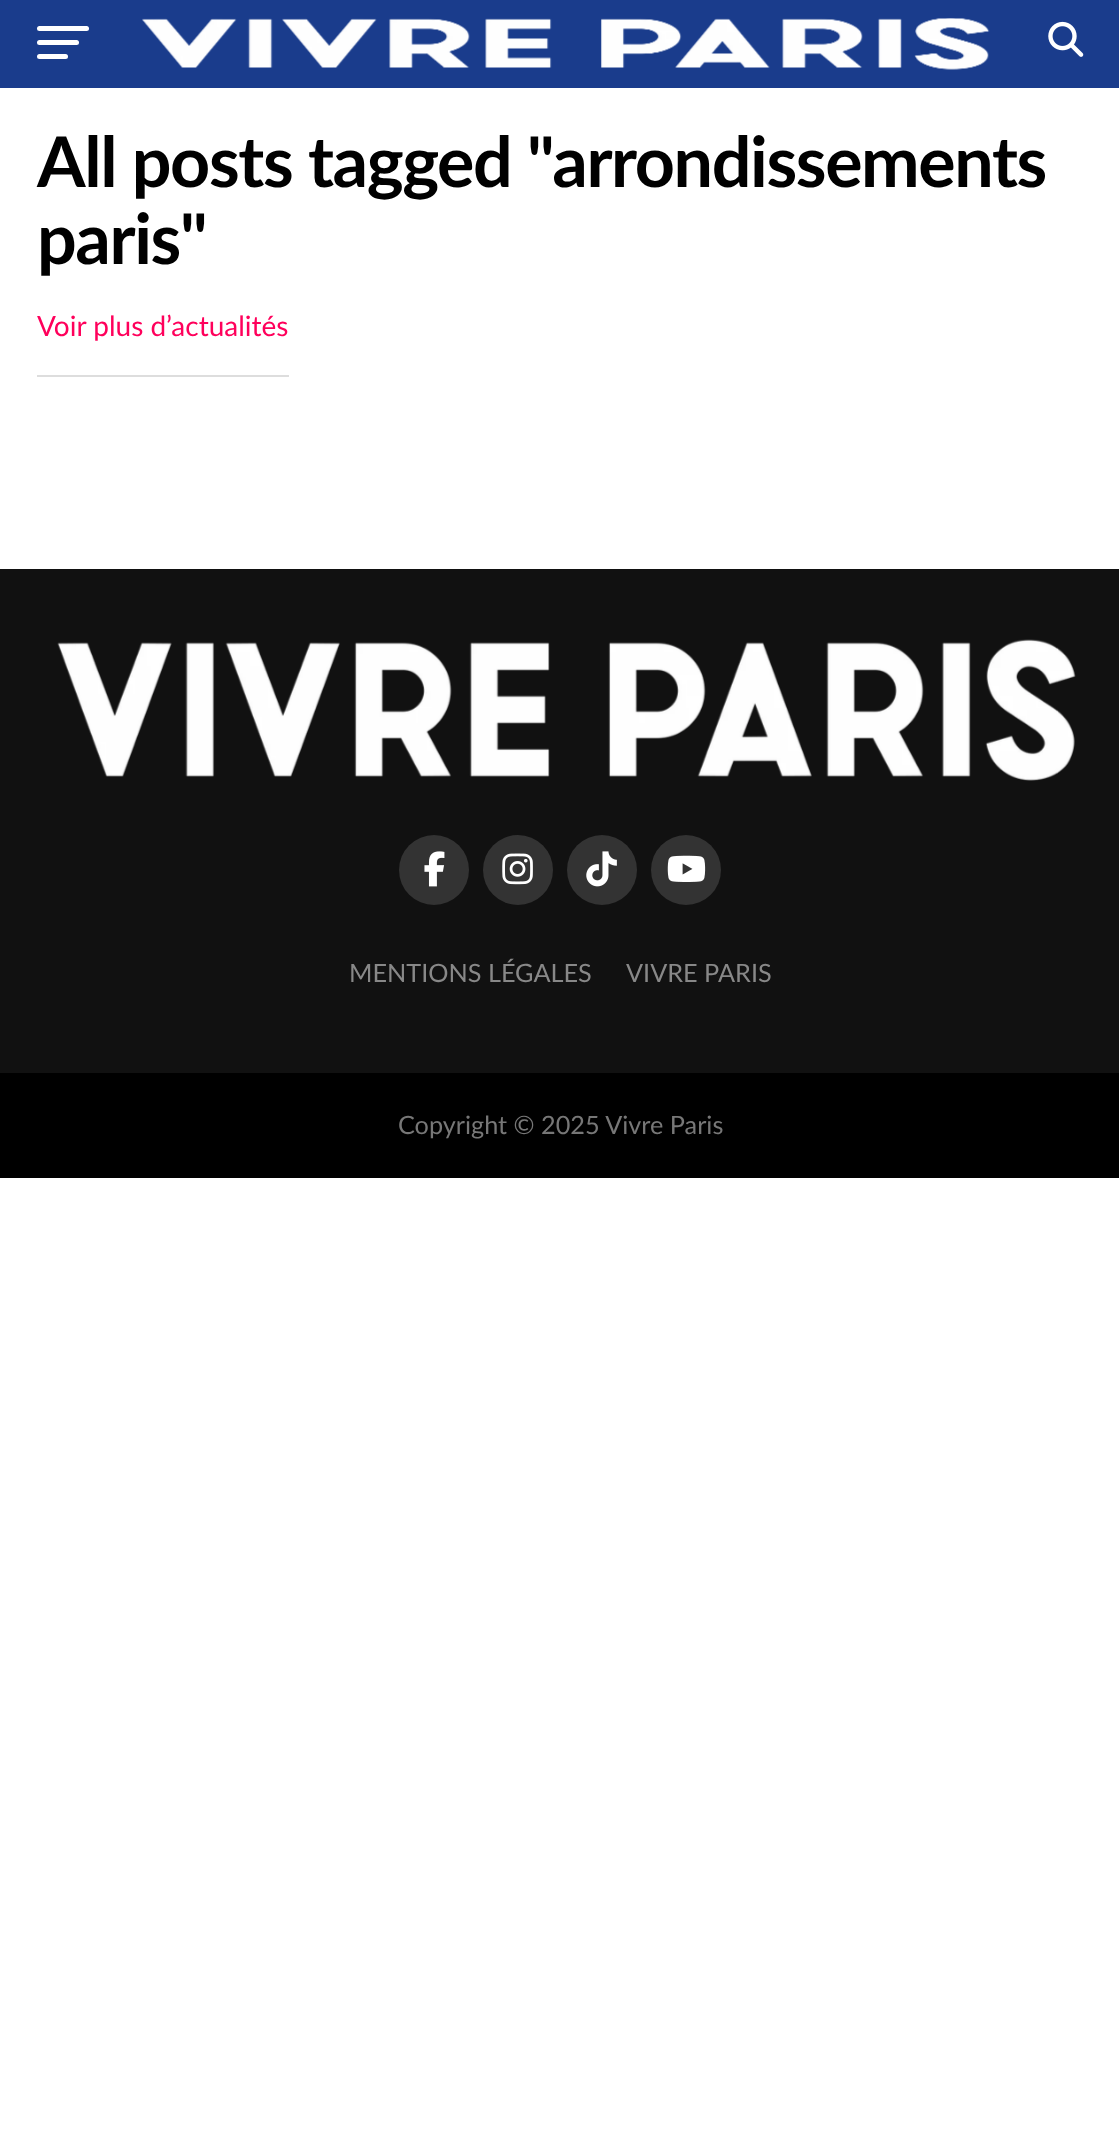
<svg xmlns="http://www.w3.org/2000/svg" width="1119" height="2140">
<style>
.a{font:bold 70px Lato;letter-spacing:-1.4px;fill:#000}
.b{font:28px Lato;fill:#ff005b}
.c{font:25.25px Lato;fill:#888}
.d{font:25.25px Lato;fill:#777}
</style>
<rect width="100%" height="100%" fill="#fff"/>
<path fill="#1a3c8c" d="M0 0h1119v88H0z"/>
<rect fill="#fff" x="37" y="26" width="52" height="5" rx="2.5"/>
<rect fill="#fff" x="37" y="40" width="42" height="5" rx="2.5"/>
<rect fill="#fff" x="37" y="54" width="31" height="5" rx="2.5"/>
<image href="1.png" x="142" y="18" width="848" height="52"/>
<image href="2.png" x="1048" y="21" width="36" height="36"/>
<path fill="#ddd" d="M37 375h252v2H37z"/>
<path fill="#111" d="M0 569h1119v504H0z"/>
<image href="3.png" x="57" y="639" width="1019" height="142"/>
<circle fill="#333" cx="434" cy="870" r="35"/>
<image href="4.png" x="424" y="851" width="21" height="36"/>
<circle fill="#333" cx="518" cy="870" r="35"/>
<image href="5.png" x="502" y="853" width="31" height="32"/>
<circle fill="#333" cx="602" cy="870" r="35"/>
<image href="6.png" x="586" y="851" width="31" height="36"/>
<circle fill="#333" cx="686" cy="870" r="35"/>
<image href="7.png" x="667" y="855" width="39" height="27"/>
<path fill="#000" d="M0 1073h1119v105H0z"/>
<text class="a" x="37" y="187">All posts tagged "arrondissements</text>
<text class="a" x="37" y="264">paris"</text>
<text class="b" x="37" y="336">Voir plus d’actualités</text>
<text class="c" x="349" y="982">MENTIONS LÉGALES</text>
<text class="c" x="626" y="982">VIVRE PARIS</text>
<text class="d" x="398" y="1134">Copyright © 2025 Vivre Paris</text>
</svg>
